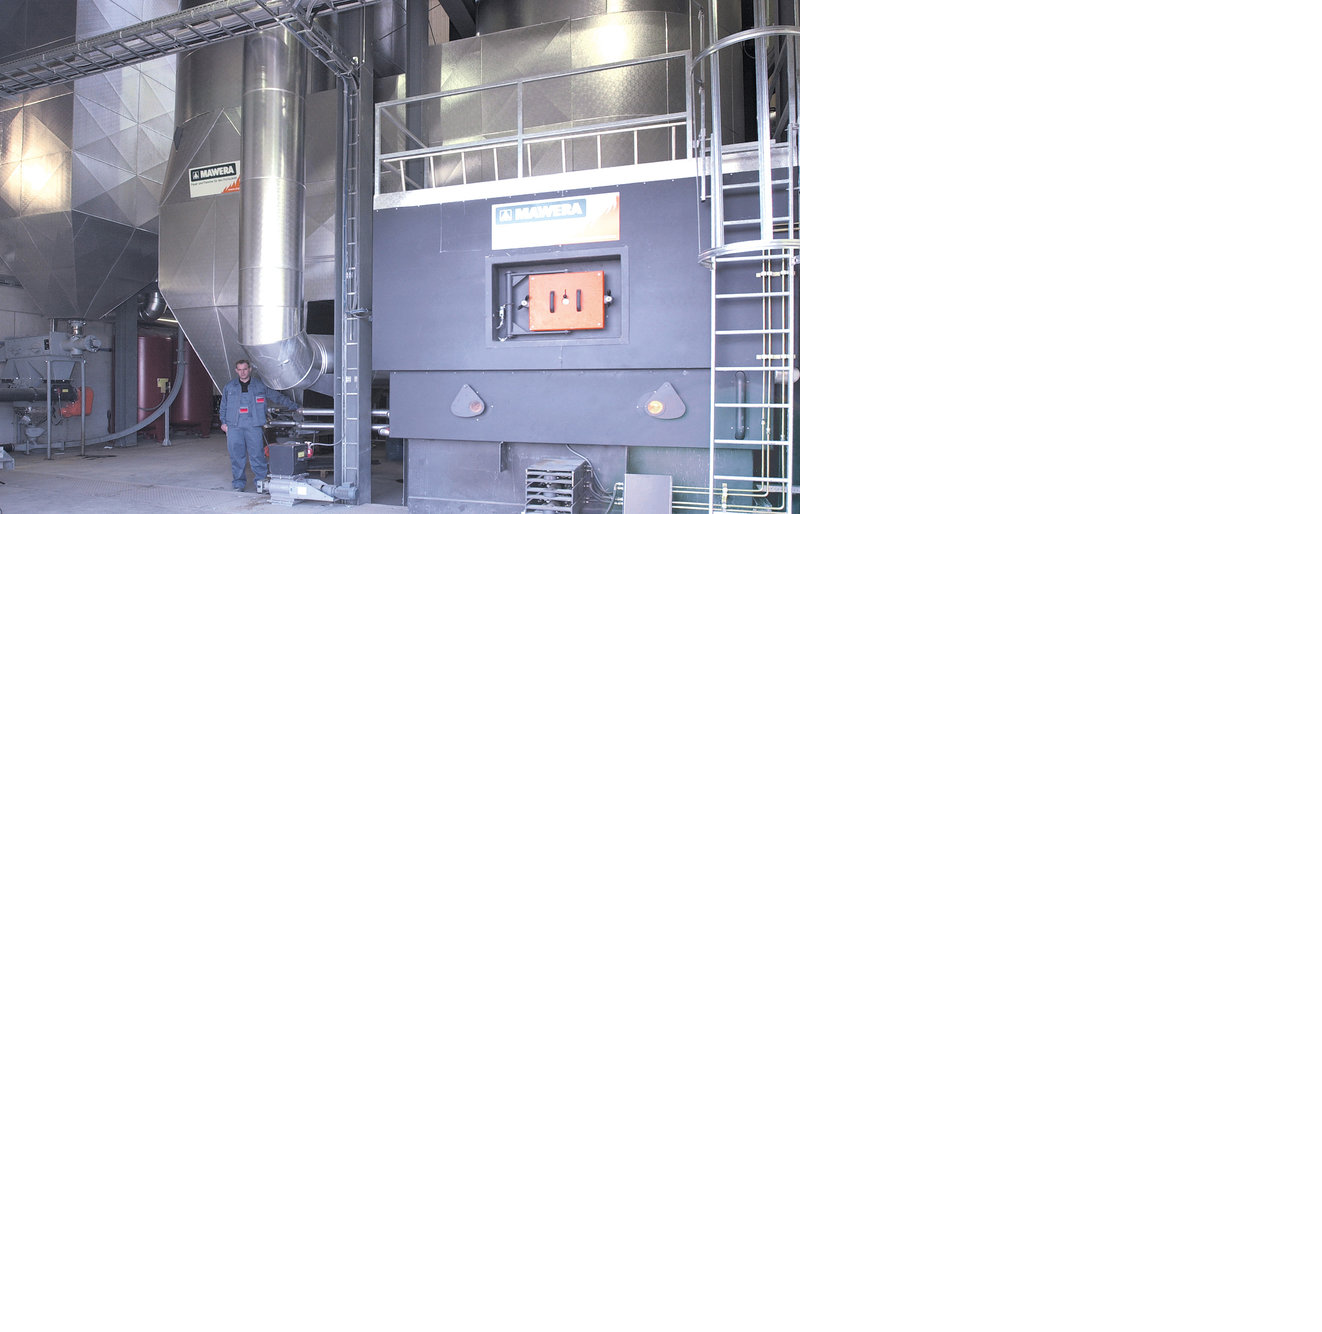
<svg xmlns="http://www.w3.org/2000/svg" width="1322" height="1332">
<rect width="100%" height="100%" fill="#fff"/>
<image href="1.png" x="0" y="0" width="800" height="514"/>
</svg>
